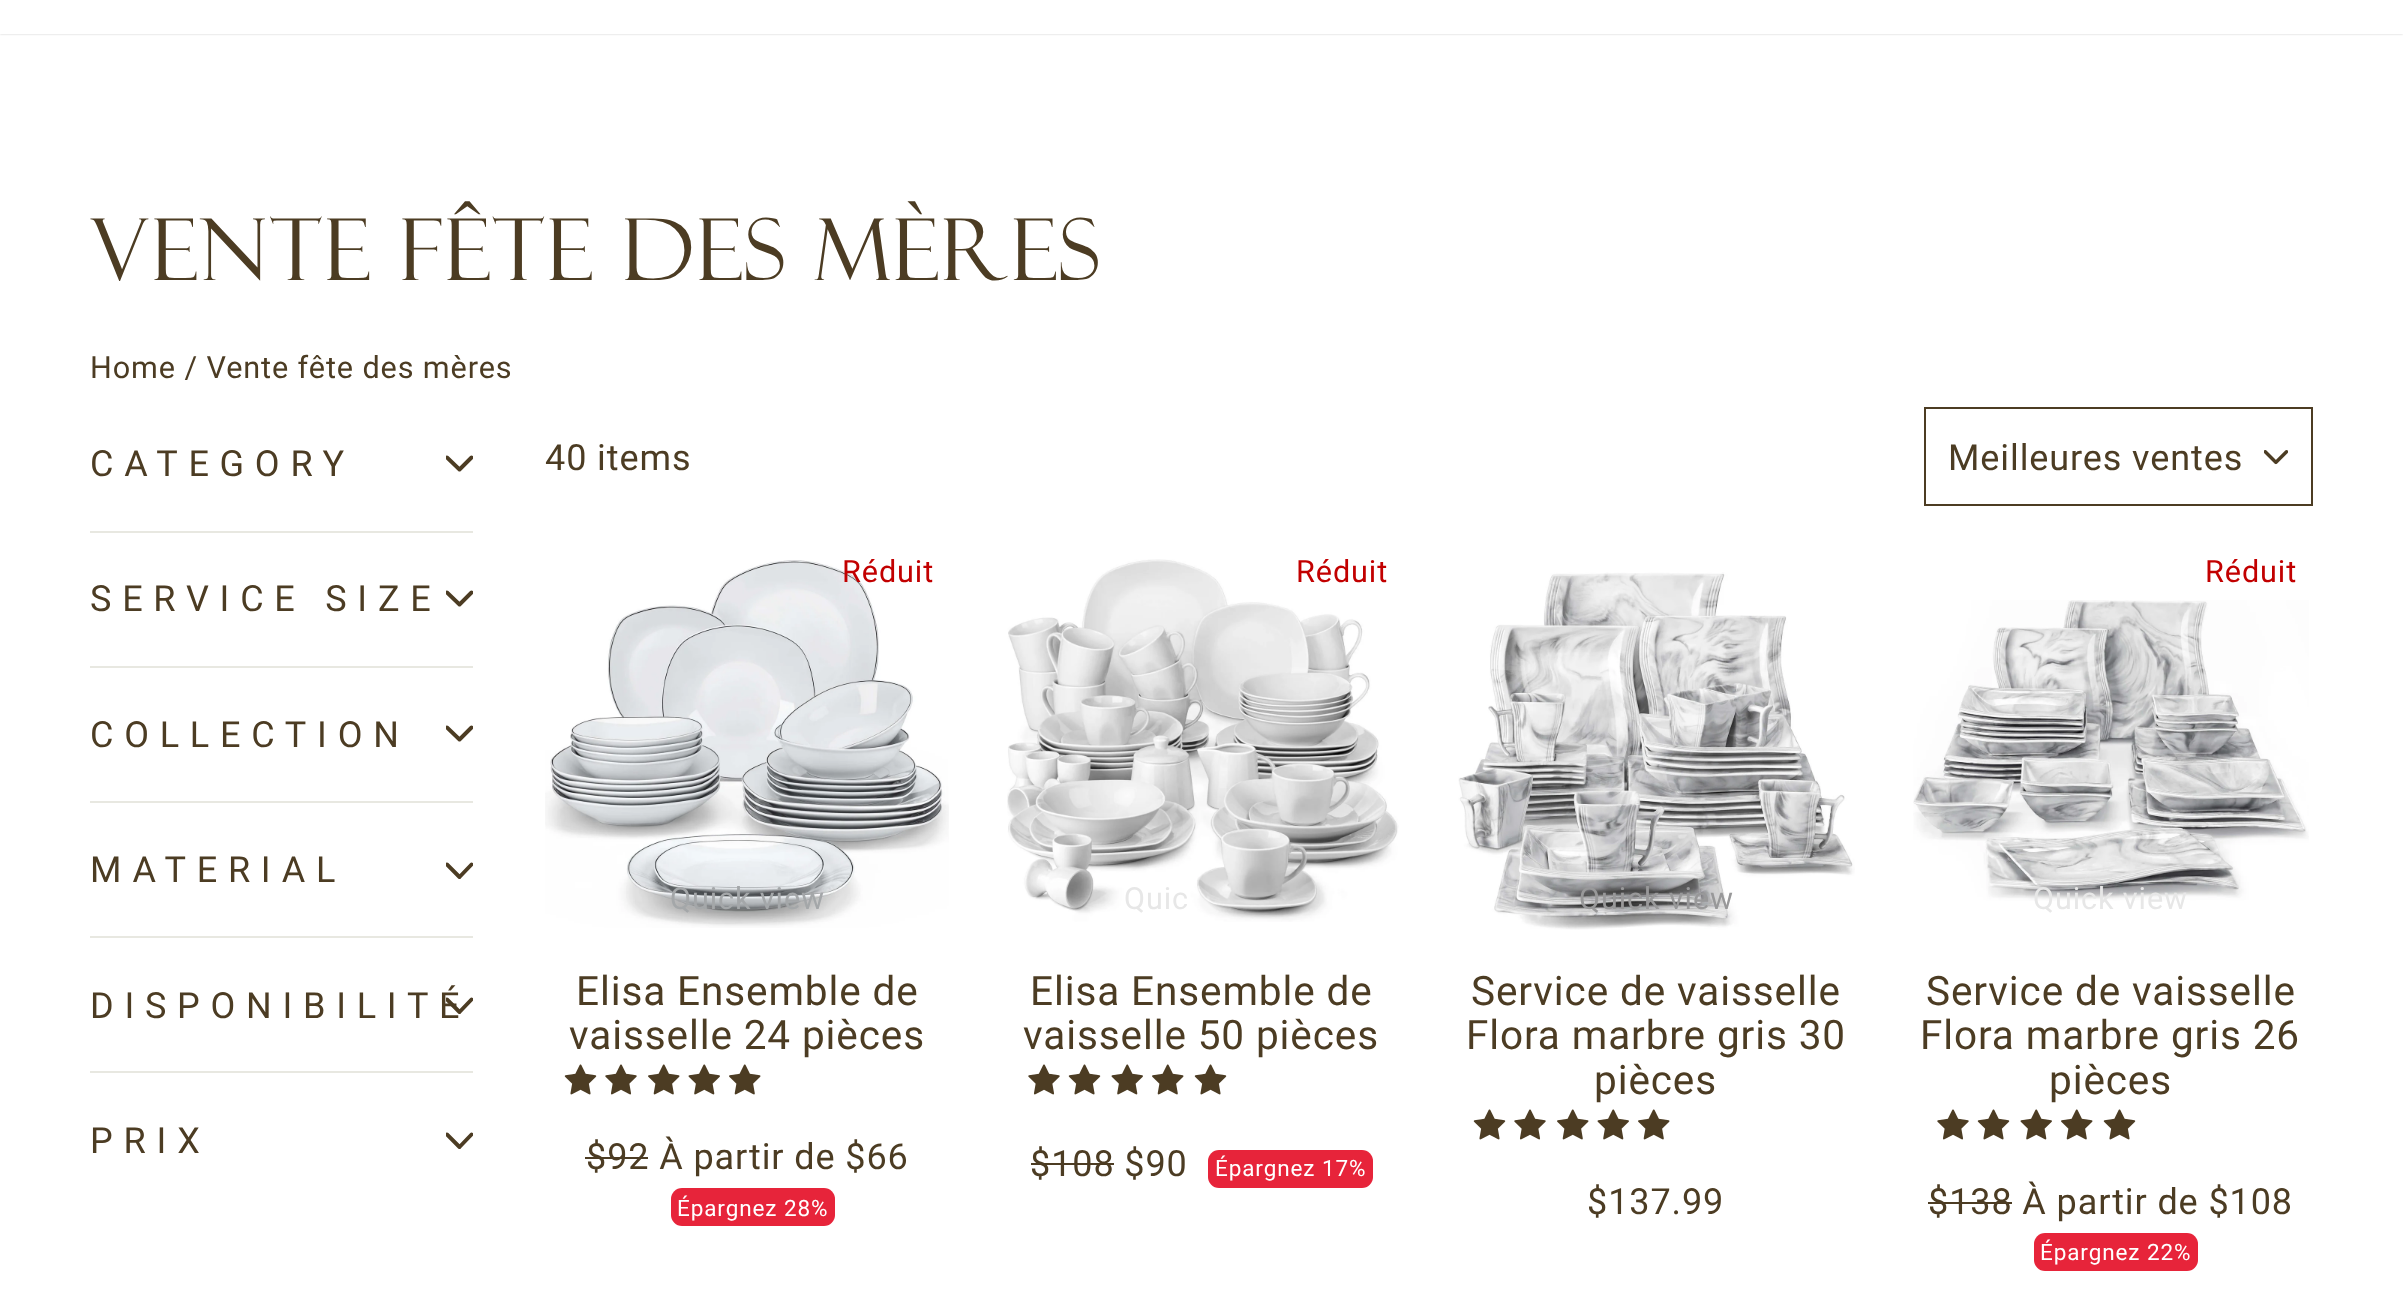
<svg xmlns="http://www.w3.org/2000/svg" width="2403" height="1312">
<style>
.a{font:85.5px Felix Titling;letter-spacing:2.1px;fill:#4c3c23}
.b{font:30.6px Roboto;letter-spacing:0.9px;fill:#4c3c23}
.c{font:36px Roboto;letter-spacing:10.75px;fill:#4c3c23}
.d{font:36px Roboto;letter-spacing:0.9px;fill:#4c3c23}
.e{font:30.6px Roboto;letter-spacing:0.9px;fill:#c20000}
.f{font:30.6px Roboto;letter-spacing:0.9px;fill:#a4a7a9}
.g{font:40.5px Roboto;letter-spacing:0.9px;fill:#4c3c23}
.h{font:22.5px Roboto;letter-spacing:0.9px;fill:#fff}
.i{font:30.6px Roboto;letter-spacing:0.9px;fill:#e7e7e7}
.j{font:30.6px Roboto;letter-spacing:0.9px;fill:#989899}
</style>
<defs>
<clipPath id="clip1"><path d="M446 450h27v27H446z"/></clipPath>
<clipPath id="clip2"><path d="M446 585h27v27H446z"/></clipPath>
<clipPath id="clip3"><path d="M446 720h27v27H446z"/></clipPath>
<clipPath id="clip4"><path d="M446 857h27v27H446z"/></clipPath>
<clipPath id="clip5"><path d="M446 992h27v27H446z"/></clipPath>
<clipPath id="clip6"><path d="M446 1127h27v27H446z"/></clipPath>
</defs>
<rect width="100%" height="100%" fill="#fff"/>
<path fill="#00000033" filter="blur(1px)" d="M0 -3h2403v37H0z"/>
<path fill="#fff" d="M0 0h2403v34H0z"/>
<g clip-path="url(#clip1)">
<path fill="none" stroke="#4c3c23" stroke-width="3.9" stroke-linecap="round" stroke-linejoin="round" d="M447 457.5l12.5 12l12-12"/>
</g>
<path fill="#e8e8e1" d="M90 531h383v2H90z"/>
<g clip-path="url(#clip2)">
<path fill="none" stroke="#4c3c23" stroke-width="3.9" stroke-linecap="round" stroke-linejoin="round" d="M447 592.5l12.5 12l12-12"/>
</g>
<path fill="#e8e8e1" d="M90 666h383v2H90z"/>
<g clip-path="url(#clip3)">
<path fill="none" stroke="#4c3c23" stroke-width="3.9" stroke-linecap="round" stroke-linejoin="round" d="M447 727.5l12.5 12l12-12"/>
</g>
<path fill="#e8e8e1" d="M90 801h383v2H90z"/>
<g clip-path="url(#clip4)">
<path fill="none" stroke="#4c3c23" stroke-width="3.9" stroke-linecap="round" stroke-linejoin="round" d="M447 864.5l12.5 12.5l12-12.5"/>
</g>
<path fill="#e8e8e1" d="M90 936h383v2H90z"/>
<g clip-path="url(#clip5)">
<path fill="none" stroke="#4c3c23" stroke-width="3.9" stroke-linecap="round" stroke-linejoin="round" d="M447 999.5l12.5 12.5l12-12.5"/>
</g>
<path fill="#e8e8e1" d="M90 1071h383v2H90z"/>
<g clip-path="url(#clip6)">
<path fill="none" stroke="#4c3c23" stroke-width="3.9" stroke-linecap="round" stroke-linejoin="round" d="M447 1134.5l12.5 12.5l12-12.5"/>
</g>
<image href="1.png" x="2264" y="450" width="24" height="15"/>
<path fill="none" stroke="#4c3c23" stroke-width="2" d="M1925 408h387v97H1925z"/>
<image href="2.png" x="545" y="560" width="404" height="368"/>
<image href="3.png" x="564" y="1064" width="33" height="31"/>
<image href="4.png" x="605" y="1064" width="32" height="31"/>
<image href="5.png" x="648" y="1064" width="32" height="31"/>
<image href="6.png" x="688" y="1064" width="32" height="31"/>
<image href="5.png" x="729" y="1064" width="32" height="31"/>
<path fill="#4c3c23" d="M585 1157h63v2H585z"/>
<rect fill="#e7243a" x="671" y="1188" width="164" height="38" rx="11"/>
<image href="7.png" x="1007" y="559" width="392" height="363"/>
<image href="4.png" x="1028" y="1064" width="32" height="31"/>
<image href="3.png" x="1068" y="1064" width="33" height="31"/>
<image href="6.png" x="1111" y="1064" width="32" height="31"/>
<image href="5.png" x="1152" y="1064" width="32" height="31"/>
<image href="3.png" x="1194" y="1064" width="33" height="31"/>
<path fill="#4c3c23" d="M1031 1163h83v2H1031z"/>
<rect fill="#e7243a" x="1208" y="1150" width="165" height="38" rx="11"/>
<image href="8.png" x="1458" y="572" width="397" height="358"/>
<image href="3.png" x="1473" y="1109" width="33" height="31"/>
<image href="4.png" x="1514" y="1109" width="32" height="31"/>
<image href="5.png" x="1557" y="1109" width="32" height="31"/>
<image href="6.png" x="1597" y="1109" width="32" height="31"/>
<image href="5.png" x="1638" y="1109" width="32" height="31"/>
<image href="9.png" x="1913" y="600" width="396" height="301"/>
<image href="4.png" x="1937" y="1109" width="32" height="31"/>
<image href="3.png" x="1977" y="1109" width="33" height="31"/>
<image href="6.png" x="2020" y="1109" width="32" height="31"/>
<image href="5.png" x="2061" y="1109" width="32" height="31"/>
<image href="3.png" x="2103" y="1109" width="33" height="31"/>
<path fill="#4c3c23" d="M1928 1202h84v2H1928z"/>
<rect fill="#e7243a" x="2034" y="1233" width="164" height="38" rx="11"/>
<text class="a" x="90" y="280">Vente fête des mères</text>
<text class="b" x="90" y="378">Home / Vente fête des mères</text>
<text class="c" x="90" y="476">CATEGORY</text>
<text class="c" x="90" y="611">SERVICE SIZE</text>
<text class="c" x="90" y="747">COLLECTION</text>
<text class="c" x="90" y="882">MATERIAL</text>
<text class="c" x="90" y="1018">DISPONIBILITÉ</text>
<text class="c" x="90" y="1153">PRIX</text>
<text class="d" x="545" y="470">40 items</text>
<text class="d" x="1948" y="470">Meilleures ventes</text>
<text class="e" x="842" y="582">Réduit</text>
<text class="f" x="670" y="909">Quick view</text>
<text class="g" x="576" y="1005">Elisa Ensemble de</text>
<text class="g" x="569" y="1049">vaisselle 24 pièces</text>
<text class="d" x="586" y="1169">$92 À partir de $66</text>
<text class="h" x="677" y="1216">Épargnez 28%</text>
<text class="e" x="1296" y="582">Réduit</text>
<text class="i" x="1124" y="909">Quic</text>
<text class="g" x="1030" y="1005">Elisa Ensemble de</text>
<text class="g" x="1023" y="1049">vaisselle 50 pièces</text>
<text class="d" x="1030" y="1176">$108 $90</text>
<text class="h" x="1215" y="1176">Épargnez 17%</text>
<text class="j" x="1579" y="909">Quick view</text>
<text class="g" x="1471" y="1005">Service de vaisselle</text>
<text class="g" x="1466" y="1049">Flora marbre gris 30</text>
<text class="g" x="1594" y="1094">pièces</text>
<text class="d" x="1587" y="1214">$137.99</text>
<text class="e" x="2205" y="582">Réduit</text>
<text class="i" x="2033" y="909">Quick view</text>
<text class="g" x="1926" y="1005">Service de vaisselle</text>
<text class="g" x="1920" y="1049">Flora marbre gris 26</text>
<text class="g" x="2049" y="1094">pièces</text>
<text class="d" x="1928" y="1214">$138 À partir de $108</text>
<text class="h" x="2040" y="1260">Épargnez 22%</text>
</svg>
